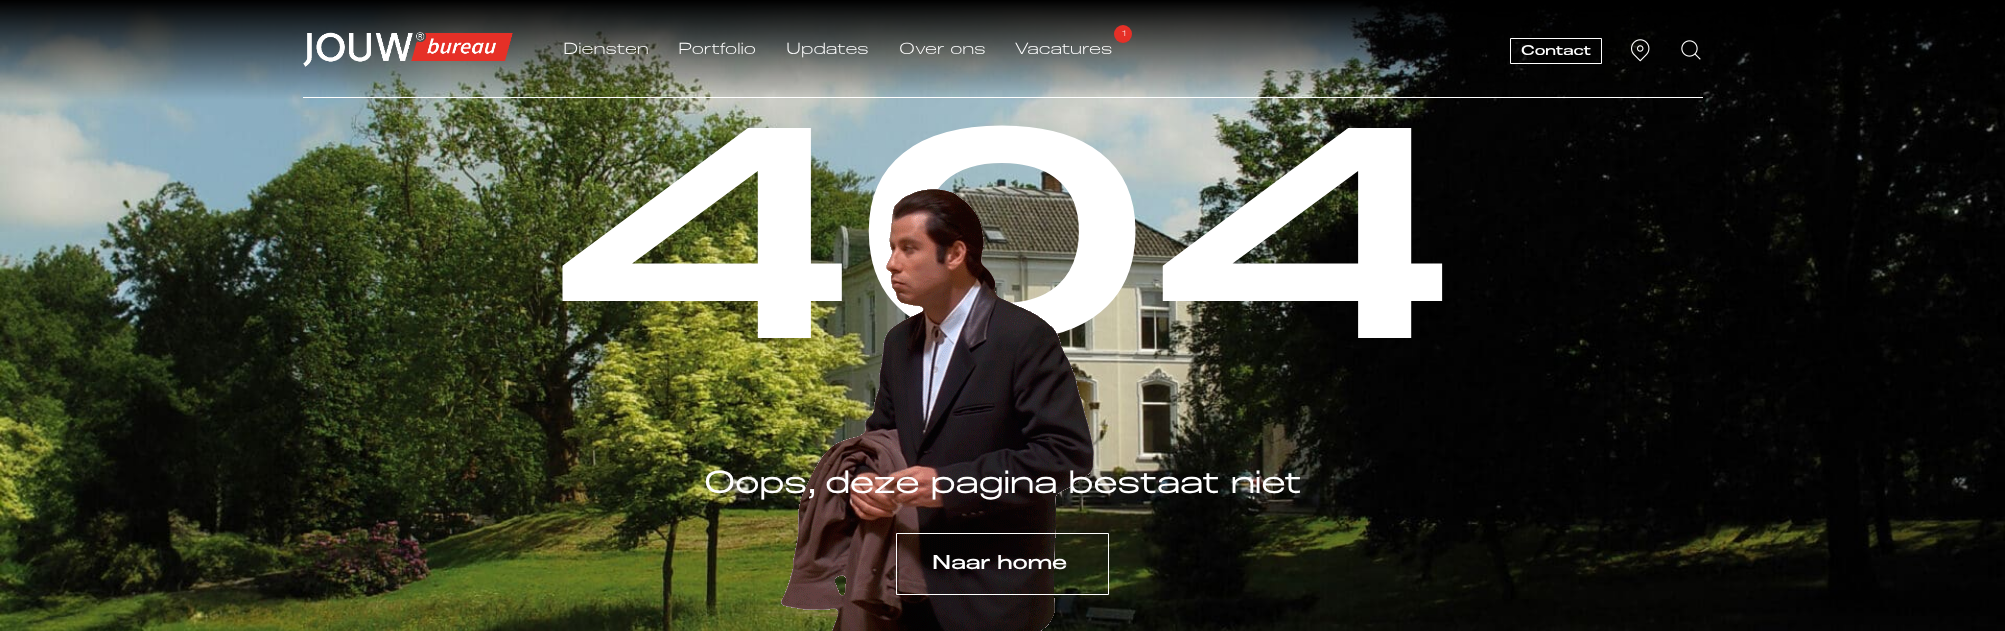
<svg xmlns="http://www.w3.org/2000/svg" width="2005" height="631">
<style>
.a{font:300 16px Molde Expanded;fill:#fff}
.b{font:300 8px Molde Expanded;fill:#fff}
.c{font:500 14px Molde Expanded;fill:#fff}
.d{font:600 300px Molde Expanded;fill:#fff}
.e{font:32px Molde Expanded;fill:#fff}
.f{font:500 20px Molde Expanded;fill:#fff}
</style>
<rect width="100%" height="100%" fill="#fff"/>
<image href="4.png" x="0" y="0" width="2005" height="631"/>
<path fill="#fff" d="M303 97h1400v1H303z"/>
<image href="1.png" x="303" y="32" width="210" height="35"/>
<circle fill="#e53027" cx="1123" cy="34" r="9"/>
<path fill="none" stroke="#fff" d="M1510.5 38.5h91v25H1510.5z"/>
<image href="2.png" x="1631" y="39" width="19" height="23"/>
<image href="3.png" x="1681" y="40" width="20" height="20"/>
<text class="a" x="563" y="54">Diensten</text>
<text class="a" x="678" y="54">Portfolio</text>
<text class="a" x="786" y="54">Updates</text>
<text class="a" x="899" y="54">Over ons</text>
<text class="b" x="1122" y="36">1</text>
<text class="a" x="1015" y="54">Vacatures</text>
<text class="c" x="1521" y="55">Contact</text>
<text class="d" x="549" y="338">404</text>
<image href="5.png" x="781" y="189" width="313" height="442"/>
<text class="e" x="704" y="493">Oops, deze pagina bestaat niet</text>
<path fill="none" stroke="#fff" d="M896.5 533.5h212v61H896.5z"/>
<text class="f" x="932" y="569">Naar home</text>
</svg>
